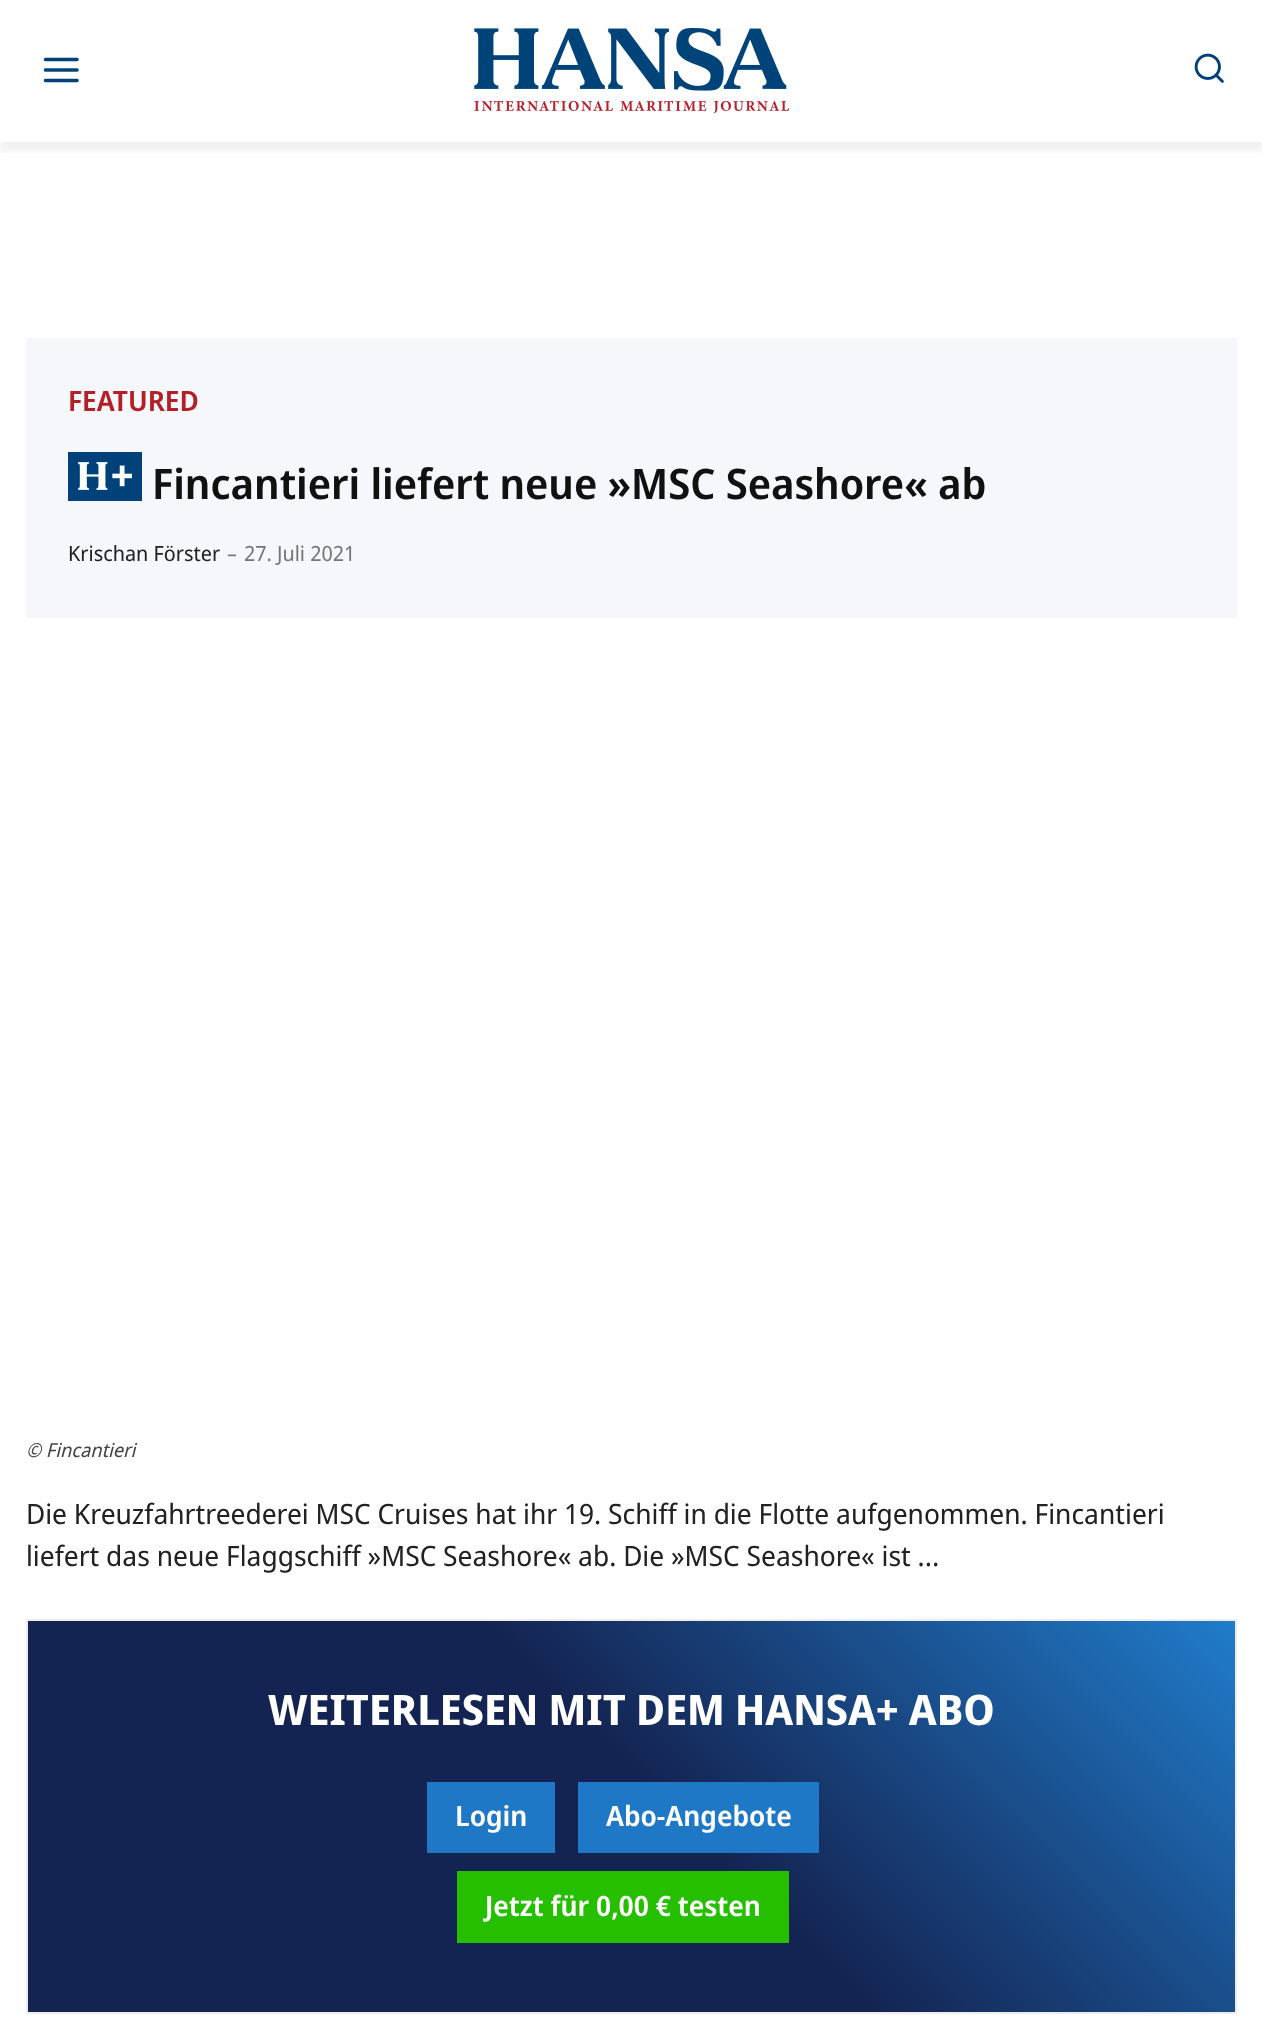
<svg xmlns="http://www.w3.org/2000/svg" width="1262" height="2040">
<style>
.a{font:600 28px Noto Sans Display;fill:#b41e26}
.b{font:600 42px Noto Sans Display;fill:#111}
.c{font:21px Noto Sans Display;fill:#222}
.d{font:21px Noto Sans Display;fill:#767676}
.e{font:italic 19.25px Noto Sans Display;fill:#444}
.f{font:28px Noto Sans Display;fill:#222}
.g{font:bold 42px Noto Sans Display;fill:#fff}
.h{font:600 28px Noto Sans Display;fill:#fff}
</style>
<defs>
<clipPath id="clip1"><path d="M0 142h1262v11H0z"/></clipPath>
<linearGradient id="g1" gradientUnits="userSpaceOnUse" x1="232" y1="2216" x2="1032" y2="1417"><stop offset="0" stop-color="#142452"/><stop offset="0.53" stop-color="#142452"/><stop offset="1" stop-color="#207cca"/></linearGradient>
</defs>
<rect width="100%" height="100%" fill="#fff"/>
<g clip-path="url(#clip1)">
<path fill="#0000000d" filter="blur(3.5px)" d="M0 11h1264v141H0z"/>
</g>
<image href="1.png" x="43" y="57" width="36" height="26"/>
<image href="2.png" x="474" y="28" width="315" height="86"/>
<image href="3.png" x="1194" y="53" width="30" height="30"/>
<path fill="#f5f7fa" d="M26 338h1211v280H26z"/>
<image href="4.png" x="68" y="452" width="74" height="49"/>
<path fill="url(#g1)" d="M28 1621h1207v391H28z"/>
<path fill="none" stroke="#ededed" stroke-width="2" d="M27 1620h1209v393H27z"/>
<path fill="#1f78c5" d="M427 1782h128v71H427z"/>
<path fill="#1f78c5" d="M578 1782h241v71H578z"/>
<path fill="#25bf00" d="M457 1871h332v72H457z"/>
<text class="a" x="68" y="411">FEATURED</text>
<text class="b" x="152" y="499">Fincantieri liefert neue »MSC Seashore« ab</text>
<text class="c" x="68" y="561">Krischan Förster</text>
<text class="d" x="227" y="561">–</text>
<text class="d" x="244" y="561">27. Juli 2021</text>
<text class="e" x="26" y="1457">© Fincantieri</text>
<text class="f" x="26" y="1524">Die Kreuzfahrtreederei MSC Cruises hat ihr 19. Schiff in die Flotte aufgenommen. Fincantieri</text>
<text class="f" x="26" y="1566">liefert das neue Flaggschiff »MSC Seashore« ab. Die »MSC Seashore« ist …</text>
<text class="g" x="268" y="1725">WEITERLESEN MIT DEM HANSA+ ABO</text>
<text class="h" x="455" y="1826">Login</text>
<text class="h" x="606" y="1826">Abo-Angebote</text>
<text class="h" x="485" y="1916">Jetzt für 0,00 € testen</text>
</svg>
